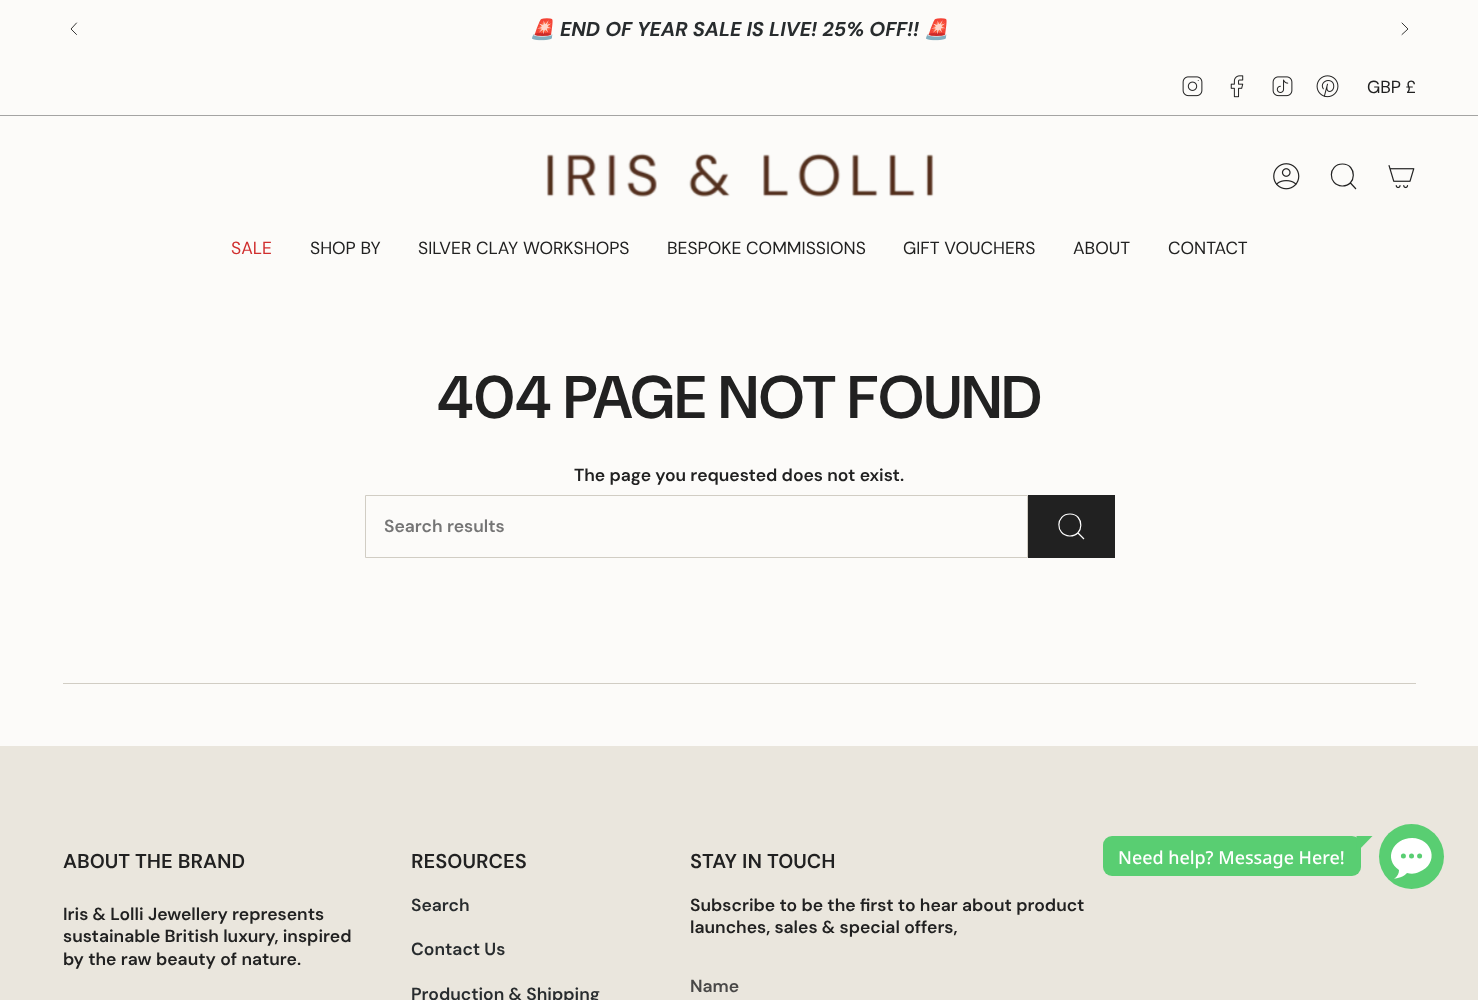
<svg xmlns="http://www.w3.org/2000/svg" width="1478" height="1000">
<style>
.a{font:italic bold 20px Noto Color Emoji;fill:#212121}
.b{font:italic bold 20px DM Sans;fill:#282c2e}
.c{font:italic bold 20px 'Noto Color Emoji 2';fill:#282c2e}
.d{font:17.5px DM Sans;fill:#212121}
.e{font:17.5px DM Sans;fill:#d02e2e}
.f{font:600 60px 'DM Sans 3';fill:#212121}
.g{font:600 17.5px DM Sans;fill:#212121}
.h{font:600 17.5px DM Sans;fill:#757575}
.i{font:600 20px 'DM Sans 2';fill:#212121}
.j{font:600 17.5px DM Sans;fill:#282c2e}
.k{font:600 17.5px DM Sans;fill:#494847}
.l{font:500 17.9px Noto Sans;fill:#fff}
</style>
<rect width="100%" height="100%" fill="#fcfbf9"/>
<path fill="none" stroke="#212121" stroke-width="0.9" stroke-linecap="round" stroke-linejoin="round" d="M76.5 23l-5.5 6l5.5 5.5"/>
<path fill="none" stroke="#212121" stroke-width="0.9" stroke-linecap="round" stroke-linejoin="round" d="M1402 23l6 6l-6 5.5"/>
<image href="1.png" x="1182" y="76" width="21" height="21"/>
<image href="2.png" x="1230" y="75" width="14" height="23"/>
<image href="3.png" x="1272" y="76" width="21" height="21"/>
<image href="4.png" x="1316" y="75" width="23" height="23"/>
<path fill="#a4a4a3" d="M0 115h1478v1H0z"/>
<image href="5.png" x="546" y="153" width="388" height="44"/>
<image href="6.png" x="1273" y="163" width="27" height="27"/>
<path fill="none" stroke="#212121" stroke-width="1.2" d="M1342.5 164c14.5 0 14.5 22.5-.5 22c-14.5-1-14-22 .5-22zm7.5 18.5l6 6.5"/>
<image href="7.png" x="1388" y="165" width="27" height="24"/>
<path fill="none" stroke="#d1cdc4" d="M365.5 495.5h662v62H365.5z"/>
<path fill="#212121" d="M1028 495h87v63H1028z"/>
<path fill="none" stroke="#fff" stroke-width="1.2" d="M1070 514c14.5 0 14.5 22.5-.5 22c-14.5-1-14-22 .5-22zm7.5 18.5l6.5 6.5"/>
<path fill="#d1cdc4" d="M63 683h1353v1H63z"/>
<path fill="#eae6dd" d="M0 746h1478v254H0z"/>
<rect fill="#59ce72" x="1103" y="836" width="258" height="40" rx="9"/>
<path fill="#59ce72" d="M1356.5 852.5v-16.5h16z"/>
<circle fill="#59ce72" cx="1411.5" cy="856.5" r="32.5"/>
<path fill="#fff" d="M1412 838c-19 0-29 21-13 32c0 3-1 6-5 9c3-1 10-2 13-6c4 1 8 1 12-1c21-8 14-34-7-34z"/>
<circle fill="#59ce72" cx="1403.4" cy="855.9" r="2.5"/>
<circle fill="#59ce72" cx="1411.5" cy="855.9" r="2.5"/>
<circle fill="#59ce72" cx="1419.6" cy="855.9" r="2.5"/>
<text class="a" x="530" y="36">🚨</text>
<text class="b" x="560" y="36">END OF YEAR SALE IS LIVE! 25% OFF!!</text>
<text class="c" x="924" y="36">🚨</text>
<text class="d" x="1367" y="93">GBP £</text>
<text class="e" x="231" y="254">SALE</text>
<text class="d" x="310" y="254">SHOP BY</text>
<text class="d" x="418" y="254">SILVER CLAY WORKSHOPS</text>
<text class="d" x="667" y="254">BESPOKE COMMISSIONS</text>
<text class="d" x="903" y="254">GIFT VOUCHERS</text>
<text class="d" x="1073" y="254">ABOUT</text>
<text class="d" x="1168" y="254">CONTACT</text>
<text class="f" x="437" y="418">404 PAGE NOT FOUND</text>
<text class="g" x="574" y="481">The page you requested does not exist.</text>
<text class="h" x="384" y="532">Search results</text>
<text class="i" x="63" y="868">ABOUT THE BRAND</text>
<text class="g" x="63" y="920">Iris &amp; Lolli Jewellery represents</text>
<text class="g" x="63" y="942">sustainable British luxury, inspired</text>
<text class="g" x="63" y="965">by the raw beauty of nature.</text>
<text class="i" x="411" y="868">RESOURCES</text>
<text class="j" x="411" y="911">Search</text>
<text class="j" x="411" y="955">Contact Us</text>
<text class="j" x="411" y="1000">Production &amp; Shipping</text>
<text class="i" x="690" y="868">STAY IN TOUCH</text>
<text class="g" x="690" y="911">Subscribe to be the first to hear about product</text>
<text class="g" x="690" y="933">launches, sales &amp; special offers,</text>
<text class="k" x="690" y="992">Name</text>
<text class="l" x="1118" y="864">Need help? Message Here!</text>
</svg>
